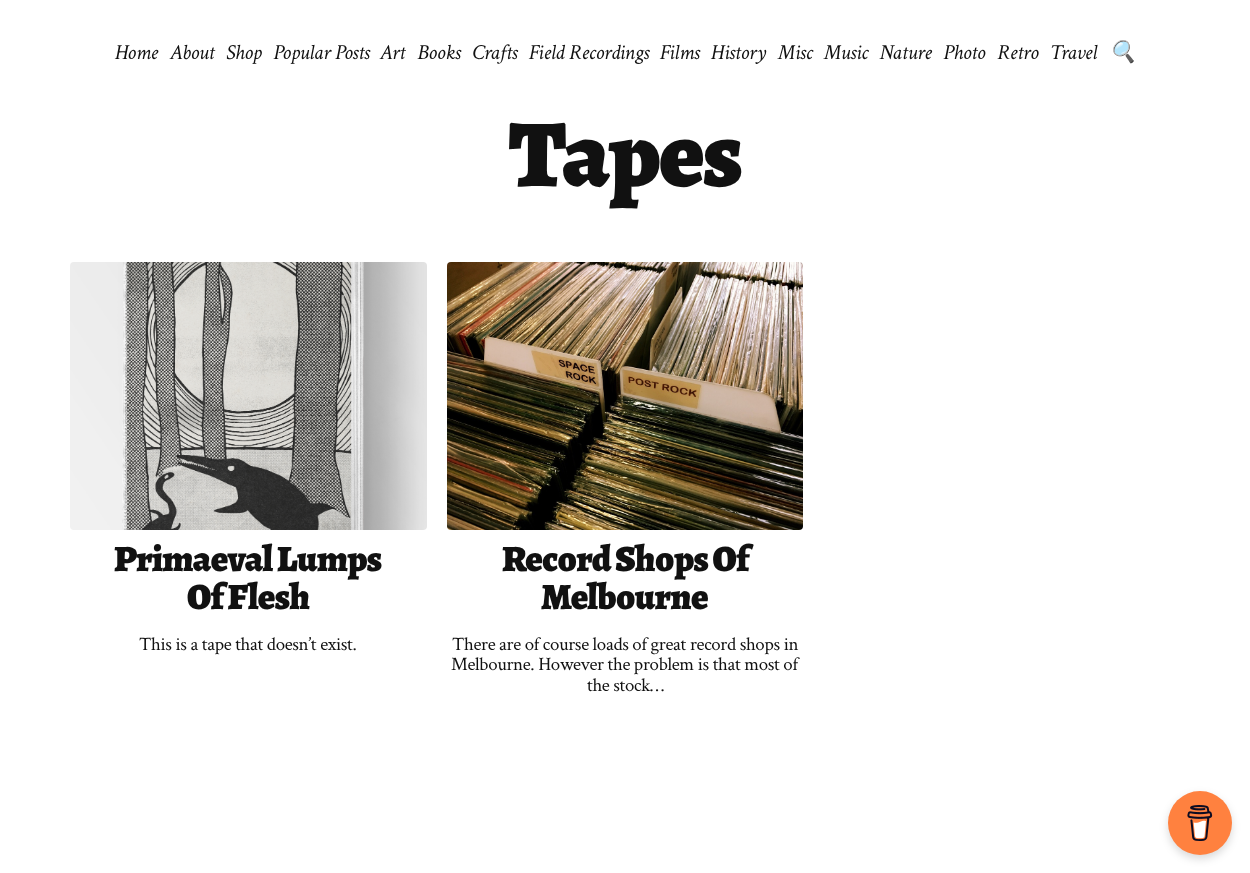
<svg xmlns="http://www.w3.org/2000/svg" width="1250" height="873">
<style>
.a{font:italic 21.5px Crimson Text;letter-spacing:-0.35px;fill:#111}
.b{font:italic 21.5px Noto Color Emoji;letter-spacing:-0.35px;fill:#111}
.c{font:900 96px Alegreya;letter-spacing:-2px;fill:#111}
.d{font:900 37px Alegreya;letter-spacing:-0.75px;fill:#111}
.e{font:18.9px Crimson Text;letter-spacing:-0.35px;fill:#111}
</style>
<rect width="100%" height="100%" fill="#fff"/>
<image href="1.png" x="70" y="262" width="357" height="268"/>
<image href="2.png" x="447" y="262" width="356" height="268"/>
<rect fill="#00000026" filter="blur(4px)" x="1168" y="795" width="64" height="64" rx="32"/>
<circle fill="#ff813f" cx="1200" cy="823" r="32"/>
<image href="3.png" x="1187" y="805" width="26" height="36"/>
<text class="a" x="115" y="59">Home</text>
<text class="a" x="170" y="59">About</text>
<text class="a" x="226" y="59">Shop</text>
<text class="a" x="273" y="59">Popular Posts</text>
<text class="a" x="380" y="59">Art</text>
<text class="a" x="417" y="59">Books</text>
<text class="a" x="472" y="59">Crafts</text>
<text class="a" x="529" y="59">Field Recordings</text>
<text class="a" x="660" y="59">Films</text>
<text class="a" x="711" y="59">History</text>
<text class="a" x="778" y="59">Misc</text>
<text class="a" x="824" y="59">Music</text>
<text class="a" x="879" y="59">Nature</text>
<text class="a" x="943" y="59">Photo</text>
<text class="a" x="997" y="59">Retro</text>
<text class="a" x="1050" y="59">Travel</text>
<text class="b" x="1109" y="59">🔍</text>
<text class="c" x="509" y="186">Tapes</text>
<text class="d" x="114" y="571">Primaeval Lumps</text>
<text class="d" x="187" y="609">Of Flesh</text>
<text class="e" x="139" y="650">This is a tape that doesn’t exist.</text>
<text class="d" x="502" y="571">Record Shops Of</text>
<text class="d" x="541" y="609">Melbourne</text>
<text class="e" x="452" y="650">There are of course loads of great record shops in</text>
<text class="e" x="451" y="670">Melbourne. However the problem is that most of</text>
<text class="e" x="587" y="691">the stock…</text>
</svg>
